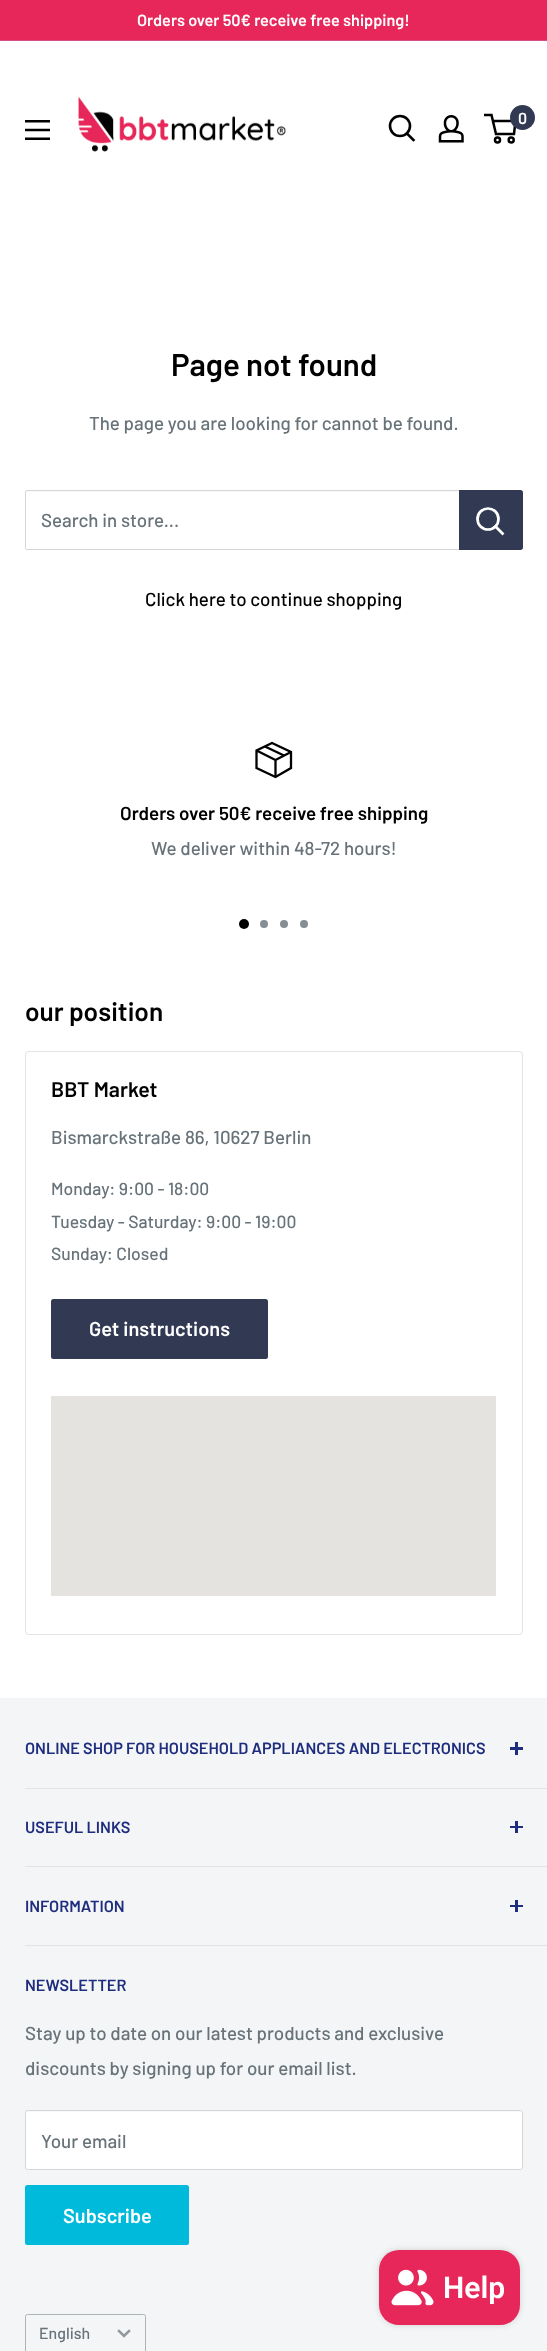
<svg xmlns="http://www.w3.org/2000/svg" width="547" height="2351">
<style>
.a{font:600 16.25px Barlow;fill:#fff}
.b{font:600 16px Barlow;fill:#fff}
.c{font:600 31.25px Barlow;fill:#000}
.d{font:500 18.75px Barlow;fill:#677279}
.e{font:500 18.75px Barlow;fill:#000}
.f{font:600 18.75px Barlow;fill:#000}
.g{font:600 26.25px Barlow;fill:#000}
.h{font:600 21.25px Barlow;fill:#000}
.i{font:500 17.5px Barlow;fill:#677279}
.j{font:600 20px Barlow;fill:#fff}
.k{font:600 16.25px Barlow;fill:#1e2d7d}
.l{font:500 16px Barlow;fill:#677279}
.m{font:600 30px Roboto;fill:#fff}
</style>
<rect width="100%" height="100%" fill="#fff"/>
<path fill="#e72759" d="M0 0h547v40H0z"/>
<path fill="#d35086" d="M0 40h547v1H0z"/>
<image href="1.png" x="78" y="96" width="208" height="56"/>
<path fill="none" stroke="#000" stroke-width="2.6" stroke-linecap="square" d="M413.5 140l-6.5-6.5"/>
<circle fill="none" stroke="#000" stroke-width="2.6" cx="400" cy="126" r="10"/>
<image href="2.png" x="438" y="115" width="26" height="28"/>
<circle fill="none" stroke="#000" stroke-width="2.5" cx="497.5" cy="140" r="2.5"/>
<circle fill="none" stroke="#000" stroke-width="2.5" cx="511.2" cy="140" r="2.5"/>
<path fill="none" stroke="#000" stroke-width="2.5" d="M493 121h22.5l-1.5 13h-18l-4.5-19h-7.5"/>
<circle fill="#323952" cx="522.5" cy="117.5" r="12.5"/>
<image href="3.png" x="25" y="120" width="25" height="20"/>
<path fill="#f8f8f8" d="M28 492h431v-1h-433v3c0-1 1-2 2-2z"/>
<path fill="#d4d6d8" d="M26 490h433v1H26z"/>
<path fill="#d4d6d8" d="M26 549h433v1H26z"/>
<path fill="#d4d6d8" d="M25 491h1v58H25z"/>
<path fill="#323952" d="M459 490h61.5c1.5 0 2.5 1 2.5 2.5v55c0 1.5-1 2.5-2.5 2.5h-61.5z"/>
<path fill="none" stroke="#fff" stroke-width="2.7" stroke-linecap="square" d="M502.5 533.5l-7-7"/>
<circle fill="none" stroke="#fff" stroke-width="2.7" cx="488" cy="519" r="10.5"/>
<path fill="none" stroke="#000" stroke-width="2.3" d="M265 746.5l19 9m7-3.5l-15.5 8l-19-9.5m19 9.5v17"/>
<path fill="none" stroke="#000" stroke-width="2.3" stroke-linecap="square" d="M291 752v16l-15.5 9l-19-9v-17.5l15.5-7.5z"/>
<circle fill="#000" cx="244" cy="924" r="5"/>
<circle fill="#858e94" cx="264" cy="924" r="4"/>
<circle fill="#858e94" cx="284" cy="924" r="4"/>
<circle fill="#858e94" cx="304" cy="924" r="4"/>
<rect fill="none" stroke="#e1e3e4" x="25.5" y="1051.5" width="497" height="583" rx="3.5"/>
<rect fill="#323952" x="51" y="1299" width="217" height="60" rx="2.5"/>
<path fill="#e5e3df" d="M51 1396h445v200H51z"/>
<path fill="#f3f5f6" d="M0 1698h547v653H0z"/>
<path fill="#e1e3e4" d="M25 1788h522v1H25z"/>
<path fill="#1e2d7d" d="M515 1742h3v13H515z"/>
<path fill="#1e2d7d" d="M510 1747h13v3H510z"/>
<path fill="#e1e3e4" d="M25 1866h522v1H25z"/>
<path fill="#1e2d7d" d="M515 1821h3v12H515z"/>
<path fill="#1e2d7d" d="M510 1826h13v2H510z"/>
<path fill="#e1e3e4" d="M25 1945h522v1H25z"/>
<path fill="#1e2d7d" d="M515 1900h3v12H515z"/>
<path fill="#1e2d7d" d="M510 1905h13v2H510z"/>
<rect fill="#fff" x="25" y="2110" width="498" height="60" rx="2.5"/>
<path fill="#f8f8f8" d="M28 2112h492c1 0 1 1 1 2v-2c0-1 0-1-1-1h-493c-1 0-1 0-1 1v2c0-1 1-2 2-2z"/>
<rect fill="none" stroke="#d4d6d8" x="25.5" y="2110.5" width="497" height="59" rx="2"/>
<rect fill="#00badb" x="25" y="2185" width="164" height="60" rx="2.5"/>
<rect fill="none" stroke="#adb4b8" x="25.5" y="2314.5" width="120" height="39" rx="2"/>
<path fill="none" stroke="#91999f" stroke-width="2.5" stroke-linecap="square" d="M129 2331l-5 5l-5-5"/>
<rect fill="#00000026" filter="blur(3px)" x="379" y="2250" width="141" height="75" rx="20"/>
<rect fill="#e72759" x="379" y="2250" width="141" height="75" rx="20"/>
<image href="4.png" x="391" y="2269" width="43" height="37"/>
<text class="a" x="137" y="26">Orders over 50€ receive free shipping!</text>
<text class="b" x="518" y="124">0</text>
<text class="c" x="171" y="376">Page not found</text>
<text class="d" x="89" y="430">The page you are looking for cannot be found.</text>
<text class="d" x="41" y="527">Search in store...</text>
<text class="e" x="145" y="606">Click here to continue shopping</text>
<text class="f" x="120" y="820">Orders over 50€ receive free shipping</text>
<text class="d" x="151" y="855">We deliver within 48-72 hours!</text>
<text class="g" x="25" y="1021">our position</text>
<text class="h" x="51" y="1097">BBT Market</text>
<text class="d" x="51" y="1144">Bismarckstraße 86, 10627 Berlin</text>
<text class="i" x="51" y="1195">Monday: 9:00 - 18:00</text>
<text class="i" x="51" y="1228">Tuesday - Saturday: 9:00 - 19:00</text>
<text class="i" x="51" y="1260">Sunday: Closed</text>
<text class="j" x="89" y="1336">Get instructions</text>
<text class="k" x="25" y="1754">ONLINE SHOP FOR HOUSEHOLD APPLIANCES AND ELECTRONICS</text>
<text class="k" x="25" y="1833">USEFUL LINKS</text>
<text class="k" x="25" y="1912">INFORMATION</text>
<text class="k" x="25" y="1991">NEWSLETTER</text>
<text class="d" x="25" y="2040">Stay up to date on our latest products and exclusive</text>
<text class="d" x="25" y="2075">discounts by signing up for our email list.</text>
<text class="d" x="41" y="2148">Your email</text>
<text class="j" x="63" y="2223">Subscribe</text>
<text class="l" x="39" y="2339">English</text>
<text class="m" x="443" y="2298">Help</text>
</svg>
